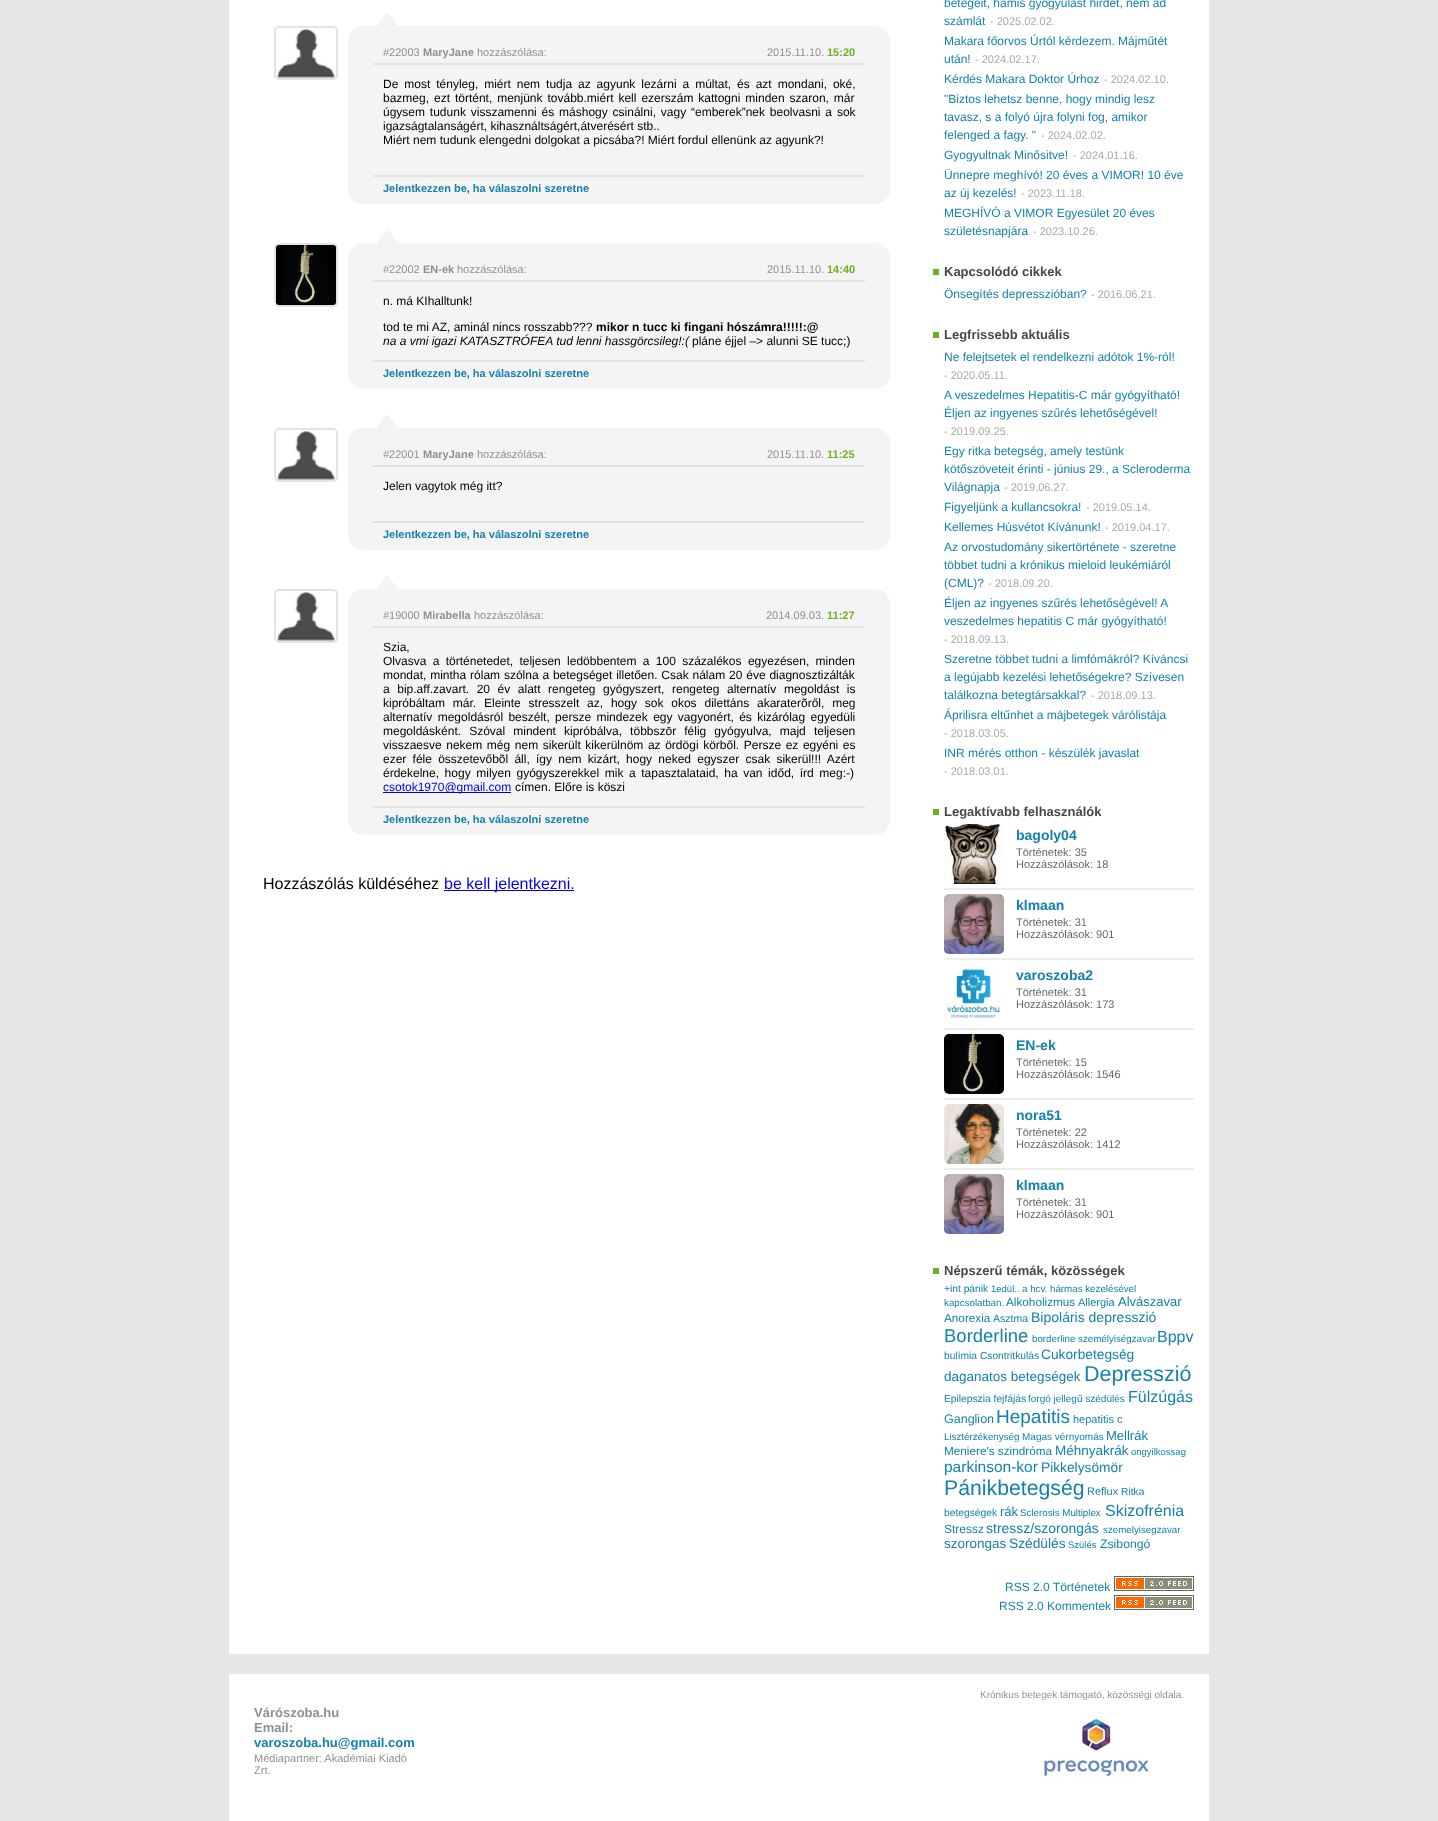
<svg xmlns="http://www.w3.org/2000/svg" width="1438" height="1821">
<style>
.a{font:11px Liberation Sans;fill:#909090}
.b{font:bold 11px Liberation Sans;fill:#909090}
.c{font:bold 11px Liberation Sans;fill:#70af23}
.d{font:12px Liberation Sans;fill:#000}
.e{font:bold 11px Liberation Sans;fill:#1581af}
.f{font:bold 12px Liberation Sans;fill:#000}
.g{font:italic 12px Liberation Sans;fill:#000}
.h{font:12px Liberation Sans;fill:#00e}
.i{font:16px Liberation Sans;fill:#000}
.j{font:16px Liberation Sans;fill:#00e}
.k{font:12px Liberation Sans;fill:#1581af}
.l{font:11px Liberation Sans;fill:#aaa}
.m{font:bold 13px Liberation Sans;fill:#484848}
.n{font:bold 14px Liberation Sans;fill:#1581af}
.o{font:11px Liberation Sans;fill:#666}
.p{font:10.25px Liberation Sans;fill:#1581af}
.q{font:9.5px Liberation Sans;fill:#1581af}
.r{font:9.75px Liberation Sans;fill:#1581af}
.s{font:11.75px Liberation Sans;fill:#1581af}
.t{font:11px Liberation Sans;fill:#1581af}
.u{font:13px Liberation Sans;fill:#1581af}
.v{font:10.5px Liberation Sans;fill:#1581af}
.w{font:14px Liberation Sans;fill:#1581af}
.x{font:18.5px Liberation Sans;fill:#1581af}
.y{font:16px Liberation Sans;fill:#1581af}
.z{font:13.75px Liberation Sans;fill:#1581af}
.a1{font:13.5px Liberation Sans;fill:#1581af}
.b1{font:21.5px Liberation Sans;fill:#1581af}
.c1{font:10px Liberation Sans;fill:#1581af}
.d1{font:12.5px Liberation Sans;fill:#1581af}
.e1{font:19px Liberation Sans;fill:#1581af}
.f1{font:15.5px Liberation Sans;fill:#1581af}
.g1{font:21.25px Liberation Sans;fill:#1581af}
.h1{font:12.25px Liberation Sans;fill:#1581af}
.i1{font:10px Liberation Sans;fill:#909090}
.j1{font:bold 13px Liberation Sans;fill:#909090}
.k1{font:bold 13px Liberation Sans;fill:#1581af}
</style>
<rect width="100%" height="100%" fill="#e5e5e5"/>
<path fill="#fff" d="M229 0h980v1654H229z"/>
<image href="1.png" x="378" y="12" width="19" height="14"/>
<rect fill="#f4f4f4" x="348" y="26" width="542" height="178" rx="15"/>
<rect fill="none" stroke="#e3e3e3" stroke-width="2" x="275" y="27" width="62" height="52" rx="4"/>
<image href="2.png" x="276" y="28" width="60" height="50"/>
<path fill="#e3e3e3" d="M373 63h492v2H373z"/>
<path fill="#e3e3e3" d="M373 175h492v2H373z"/>
<image href="1.png" x="378" y="229" width="19" height="14"/>
<rect fill="#f4f4f4" x="348" y="243" width="542" height="146" rx="15"/>
<rect fill="none" stroke="#e3e3e3" stroke-width="2" x="275" y="244" width="62" height="62" rx="4"/>
<image href="3.png" x="276" y="245" width="60" height="60"/>
<path fill="#e3e3e3" d="M373 280h492v2H373z"/>
<path fill="#e3e3e3" d="M373 360h492v2H373z"/>
<image href="1.png" x="378" y="414" width="19" height="14"/>
<rect fill="#f4f4f4" x="348" y="428" width="542" height="122" rx="15"/>
<rect fill="none" stroke="#e3e3e3" stroke-width="2" x="275" y="429" width="62" height="52" rx="4"/>
<image href="2.png" x="276" y="430" width="60" height="50"/>
<path fill="#e3e3e3" d="M373 465h492v2H373z"/>
<path fill="#e3e3e3" d="M373 521h492v2H373z"/>
<image href="1.png" x="378" y="575" width="19" height="14"/>
<rect fill="#f4f4f4" x="348" y="589" width="542" height="246" rx="15"/>
<rect fill="none" stroke="#e3e3e3" stroke-width="2" x="275" y="590" width="62" height="52" rx="4"/>
<image href="2.png" x="276" y="591" width="60" height="50"/>
<path fill="#e3e3e3" d="M373 626h492v2H373z"/>
<path fill="#00e" d="M383 792h128v1H383z"/>
<path fill="#e3e3e3" d="M373 806h492v2H373z"/>
<path fill="#00e" d="M444 890h130v1H444z"/>
<path fill="#6fae23" d="M933 269h6v6H933z"/>
<path fill="#6fae23" d="M933 332h6v6H933z"/>
<path fill="#6fae23" d="M933 809h6v6H933z"/>
<path fill="#ededed" d="M944 888h250v2H944z"/>
<image href="4.png" x="944" y="824" width="60" height="60"/>
<path fill="#ededed" d="M944 958h250v2H944z"/>
<image href="5.png" x="944" y="894" width="60" height="60"/>
<path fill="#ededed" d="M944 1028h250v2H944z"/>
<image href="6.png" x="944" y="966" width="58" height="55"/>
<path fill="#ededed" d="M944 1098h250v2H944z"/>
<image href="7.png" x="944" y="1034" width="60" height="60"/>
<path fill="#ededed" d="M944 1168h250v2H944z"/>
<image href="8.png" x="944" y="1104" width="60" height="60"/>
<image href="5.png" x="944" y="1174" width="60" height="60"/>
<path fill="#6fae23" d="M933 1268h6v6H933z"/>
<image href="9.png" x="1114" y="1576" width="80" height="15"/>
<image href="9.png" x="1114" y="1595" width="80" height="15"/>
<path fill="#fff" d="M229 1674h980v147H229z"/>
<image href="10.png" x="1041" y="1714" width="109" height="64"/>
<text class="a" x="383" y="56">#22003</text>
<text class="b" x="423" y="56">MaryJane</text>
<text class="a" x="477" y="56">hozzászólása:</text>
<text class="a" x="767" y="56">2015.11.10.</text>
<text class="c" x="827" y="56">15:20</text>
<text class="d" x="383" y="88" word-spacing="2.6">De most tényleg, miért nem tudja az agyunk lezárni a múltat, és azt mondani, oké,</text>
<text class="d" x="383" y="102" word-spacing="1.6">bazmeg, ezt történt, menjünk tovább.miért kell ezerszám kattogni minden szaron, már</text>
<text class="d" x="383" y="116" word-spacing="1.5">úgysem tudunk visszamenni és máshogy csinálni, vagy “emberek”nek beolvasni a sok</text>
<text class="d" x="383" y="130">igazságtalanságért, kihasználtságért,átverésért stb..</text>
<text class="d" x="383" y="144">Miért nem tudunk elengedni dolgokat a picsába?! Miért fordul ellenünk az agyunk?!</text>
<text class="e" x="383" y="192">Jelentkezzen be, ha válaszolni szeretne</text>
<text class="a" x="383" y="273">#22002</text>
<text class="b" x="423" y="273">EN-ek</text>
<text class="a" x="457" y="273">hozzászólása:</text>
<text class="a" x="767" y="273">2015.11.10.</text>
<text class="c" x="827" y="273">14:40</text>
<text class="d" x="383" y="305">n. má KIhalltunk!</text>
<text class="d" x="383" y="331">tod te mi AZ, aminál nincs rosszabb???</text>
<text class="f" x="596" y="331">mikor n tucc ki fingani hószámra!!!!!:@</text>
<text class="g" x="383" y="345">na a vmi igazi KATASZTRÓFEA tud lenni hassgörcsileg!:(</text>
<text class="d" x="692" y="345">pláne éjjel –&gt; alunni SE tucc;)</text>
<text class="e" x="383" y="377">Jelentkezzen be, ha válaszolni szeretne</text>
<text class="a" x="383" y="458">#22001</text>
<text class="b" x="423" y="458">MaryJane</text>
<text class="a" x="477" y="458">hozzászólása:</text>
<text class="a" x="767" y="458">2015.11.10.</text>
<text class="c" x="827" y="458">11:25</text>
<text class="d" x="383" y="490">Jelen vagytok még itt?</text>
<text class="e" x="383" y="538">Jelentkezzen be, ha válaszolni szeretne</text>
<text class="a" x="383" y="619">#19000</text>
<text class="b" x="423" y="619">Mirabella</text>
<text class="a" x="474" y="619">hozzászólása:</text>
<text class="a" x="766" y="619">2014.09.03.</text>
<text class="c" x="827" y="619">11:27</text>
<text class="d" x="383" y="651">Szia,</text>
<text class="d" x="383" y="665" word-spacing="3">Olvasva a történetedet, teljesen ledöbbentem a 100 százalékos egyezésen, minden</text>
<text class="d" x="383" y="679" word-spacing="0.5">mondat, mintha rólam szólna a betegséget illetően. Csak nálam 20 éve diagnosztizálták</text>
<text class="d" x="383" y="693" word-spacing="4.25">a bip.aff.zavart. 20 év alatt rengeteg gyógyszert, rengeteg alternatív megoldást is</text>
<text class="d" x="383" y="707" word-spacing="4.5">kipróbáltam már. Eleinte stresszelt az, hogy sok okos dilettáns akaraterõről, meg</text>
<text class="d" x="383" y="721" word-spacing="2">alternatív megoldásról beszélt, persze mindezek egy vagyonért, és kizárólag egyedüli</text>
<text class="d" x="383" y="735" word-spacing="4.75">megoldásként. Szóval mindent kipróbálva, többszōr félig gyógyulva, majd teljesen</text>
<text class="d" x="383" y="749" word-spacing="1.25">visszaesve nekem még nem sikerült kikerülnöm az ördögi körből. Persze ez egyéni es</text>
<text class="d" x="383" y="763" word-spacing="2.9">ezer féle összetevőbõl áll, így nem kizárt, hogy neked egyszer csak sikerül!!! Azért</text>
<text class="d" x="383" y="777" word-spacing="2.25">érdekelne, hogy milyen gyógyszerekkel mik a tapasztalataid, ha van időd, írd meg:-)</text>
<text class="h" x="383" y="791">csotok1970@gmail.com</text>
<text class="d" x="515" y="791">címen. Előre is köszi</text>
<text class="e" x="383" y="823">Jelentkezzen be, ha válaszolni szeretne</text>
<text class="i" x="263" y="889">Hozzászólás küldéséhez</text>
<text class="j" x="444" y="889">be kell jelentkezni.</text>
<text class="k" x="944" y="7">betegeit, hamis gyógyulást hirdet, nem ad</text>
<text class="k" x="944" y="25">számlát</text>
<text class="l" x="990" y="25">- 2025.02.02.</text>
<text class="k" x="944" y="45">Makara főorvos Úrtól kérdezem. Májműtét</text>
<text class="k" x="944" y="63">után!</text>
<text class="l" x="975" y="63">- 2024.02.17.</text>
<text class="k" x="944" y="83">Kérdés Makara Doktor Úrhoz</text>
<text class="l" x="1104" y="83">- 2024.02.10.</text>
<text class="k" x="944" y="103">"Biztos lehetsz benne, hogy mindig lesz</text>
<text class="k" x="944" y="121">tavasz, s a folyó újra folyni fog, amikor</text>
<text class="k" x="944" y="139">felenged a fagy. "</text>
<text class="l" x="1041" y="139">- 2024.02.02.</text>
<text class="k" x="944" y="159">Gyogyultnak Minősitve!</text>
<text class="l" x="1073" y="159">- 2024.01.16.</text>
<text class="k" x="944" y="179">Ünnepre meghívó! 20 éves a VIMOR! 10 éve</text>
<text class="k" x="944" y="197">az új kezelés!</text>
<text class="l" x="1021" y="197">- 2023.11.18.</text>
<text class="k" x="944" y="217">MEGHÍVÓ a VIMOR Egyesület 20 éves</text>
<text class="k" x="944" y="235">születésnapjára</text>
<text class="l" x="1033" y="235">- 2023.10.26.</text>
<text class="m" x="944" y="276">Kapcsolódó cikkek</text>
<text class="k" x="944" y="298">Önsegítés depresszióban?</text>
<text class="l" x="1091" y="298">- 2016.06.21.</text>
<text class="m" x="944" y="339">Legfrissebb aktuális</text>
<text class="k" x="944" y="361">Ne felejtsetek el rendelkezni adótok 1%-ról!</text>
<text class="l" x="944" y="379">- 2020.05.11.</text>
<text class="k" x="944" y="399">A veszedelmes Hepatitis-C már gyógyítható!</text>
<text class="k" x="944" y="417">Éljen az ingyenes szűrés lehetőségével!</text>
<text class="l" x="944" y="435">- 2019.09.25.</text>
<text class="k" x="944" y="455">Egy ritka betegség, amely testünk</text>
<text class="k" x="944" y="473">kötőszöveteit érinti - június 29., a Scleroderma</text>
<text class="k" x="944" y="491">Világnapja</text>
<text class="l" x="1004" y="491">- 2019.06.27.</text>
<text class="k" x="944" y="511">Figyeljünk a kullancsokra!</text>
<text class="l" x="1086" y="511">- 2019.05.14.</text>
<text class="k" x="944" y="531">Kellemes Húsvétot Kívánunk!</text>
<text class="l" x="1105" y="531">- 2019.04.17.</text>
<text class="k" x="944" y="551">Az orvostudomány sikertörténete - szeretne</text>
<text class="k" x="944" y="569">többet tudni a krónikus mieloid leukémiáról</text>
<text class="k" x="944" y="587">(CML)?</text>
<text class="l" x="988" y="587">- 2018.09.20.</text>
<text class="k" x="944" y="607">Éljen az ingyenes szűrés lehetőségével! A</text>
<text class="k" x="944" y="625">veszedelmes hepatitis C már gyógyítható!</text>
<text class="l" x="944" y="643">- 2018.09.13.</text>
<text class="k" x="944" y="663">Szeretne többet tudni a limfómákról? Kíváncsi</text>
<text class="k" x="944" y="681">a legújabb kezelési lehetőségekre? Szívesen</text>
<text class="k" x="944" y="699">találkozna betegtársakkal?</text>
<text class="l" x="1091" y="699">- 2018.09.13.</text>
<text class="k" x="944" y="719">Áprilisra eltűnhet a májbetegek várólistája</text>
<text class="l" x="944" y="737">- 2018.03.05.</text>
<text class="k" x="944" y="757">INR mérés otthon - készülék javaslat</text>
<text class="l" x="944" y="775">- 2018.03.01.</text>
<text class="m" x="944" y="816">Legaktívabb felhasználók</text>
<text class="n" x="1016" y="840">bagoly04</text>
<text class="o" x="1016" y="856">Történetek: 35</text>
<text class="o" x="1016" y="868">Hozzászólások: 18</text>
<text class="n" x="1016" y="910">klmaan</text>
<text class="o" x="1016" y="926">Történetek: 31</text>
<text class="o" x="1016" y="938">Hozzászólások: 901</text>
<text class="n" x="1016" y="980">varoszoba2</text>
<text class="o" x="1016" y="996">Történetek: 31</text>
<text class="o" x="1016" y="1008">Hozzászólások: 173</text>
<text class="n" x="1016" y="1050">EN-ek</text>
<text class="o" x="1016" y="1066">Történetek: 15</text>
<text class="o" x="1016" y="1078">Hozzászólások: 1546</text>
<text class="n" x="1016" y="1120">nora51</text>
<text class="o" x="1016" y="1136">Történetek: 22</text>
<text class="o" x="1016" y="1148">Hozzászólások: 1412</text>
<text class="n" x="1016" y="1190">klmaan</text>
<text class="o" x="1016" y="1206">Történetek: 31</text>
<text class="o" x="1016" y="1218">Hozzászólások: 901</text>
<text class="m" x="944" y="1275">Népszerű témák, közösségek</text>
<text class="p" x="944" y="1292">+int pánik</text>
<text class="q" x="991" y="1292">1edül..</text>
<text class="r" x="1022" y="1292">a hcv. hármas kezelésével</text>
<text class="r" x="944" y="1306">kapcsolatban.</text>
<text class="s" x="1006" y="1306">Alkoholizmus</text>
<text class="t" x="1078" y="1306">Allergia</text>
<text class="u" x="1118" y="1306">Alvászavar</text>
<text class="s" x="944" y="1322">Anorexia</text>
<text class="v" x="993" y="1322">Asztma</text>
<text class="w" x="1031" y="1322">Bipoláris depresszió</text>
<text class="x" x="944" y="1342">Borderline</text>
<text class="r" x="1032" y="1342">borderline személyiségzavar</text>
<text class="y" x="1157" y="1342">Bppv</text>
<text class="p" x="944" y="1359">bulímia Csontritkulás</text>
<text class="z" x="1041" y="1359">Cukorbetegség</text>
<text class="a1" x="944" y="1381">daganatos betegségek</text>
<text class="b1" x="1084" y="1381">Depresszió</text>
<text class="p" x="944" y="1402">Epilepszia fejfájás</text>
<text class="c1" x="1028" y="1402">forgó jellegű szédülés</text>
<text class="y" x="1128" y="1402">Fülzúgás</text>
<text class="d1" x="944" y="1423">Ganglion</text>
<text class="e1" x="996" y="1423">Hepatitis</text>
<text class="t" x="1073" y="1423">hepatitis c</text>
<text class="r" x="944" y="1440">Lisztérzékenység</text>
<text class="c1" x="1022" y="1440">Magas vérnyomás</text>
<text class="u" x="1106" y="1440">Mellrák</text>
<text class="s" x="944" y="1455">Meniere's szindróma</text>
<text class="a1" x="1055" y="1455">Méhnyakrák</text>
<text class="q" x="1131" y="1455">ongyilkossag</text>
<text class="f1" x="944" y="1472">parkinson-kor</text>
<text class="z" x="1041" y="1472">Pikkelysömör</text>
<text class="g1" x="944" y="1495">Pánikbetegség</text>
<text class="t" x="1087" y="1495">Reflux</text>
<text class="p" x="1121" y="1495">Ritka</text>
<text class="p" x="944" y="1516">betegségek</text>
<text class="u" x="1000" y="1516">rák</text>
<text class="r" x="1020" y="1516">Sclerosis Multiplex</text>
<text class="y" x="1105" y="1516">Skizofrénia</text>
<text class="k" x="944" y="1533">Stressz</text>
<text class="w" x="986" y="1533">stressz/szorongás</text>
<text class="r" x="1103" y="1533">szemelyisegzavar</text>
<text class="a1" x="944" y="1548">szorongas</text>
<text class="z" x="1009" y="1548">Szédülés</text>
<text class="q" x="1068" y="1548">Szülés</text>
<text class="h1" x="1100" y="1548">Zsibongó</text>
<text class="k" x="1005" y="1591">RSS 2.0 Történetek</text>
<text class="k" x="999" y="1610">RSS 2.0 Kommentek</text>
<text class="i1" x="980" y="1698">Krónikus betegek támogató, közösségi oldala.</text>
<text class="j1" x="254" y="1717">Várószoba.hu</text>
<text class="j1" x="254" y="1732">Email:</text>
<text class="k1" x="254" y="1747">varoszoba.hu@gmail.com</text>
<text class="a" x="254" y="1762">Médiapartner: Akadémiai Kiadó</text>
<text class="a" x="254" y="1774">Zrt.</text>
</svg>
